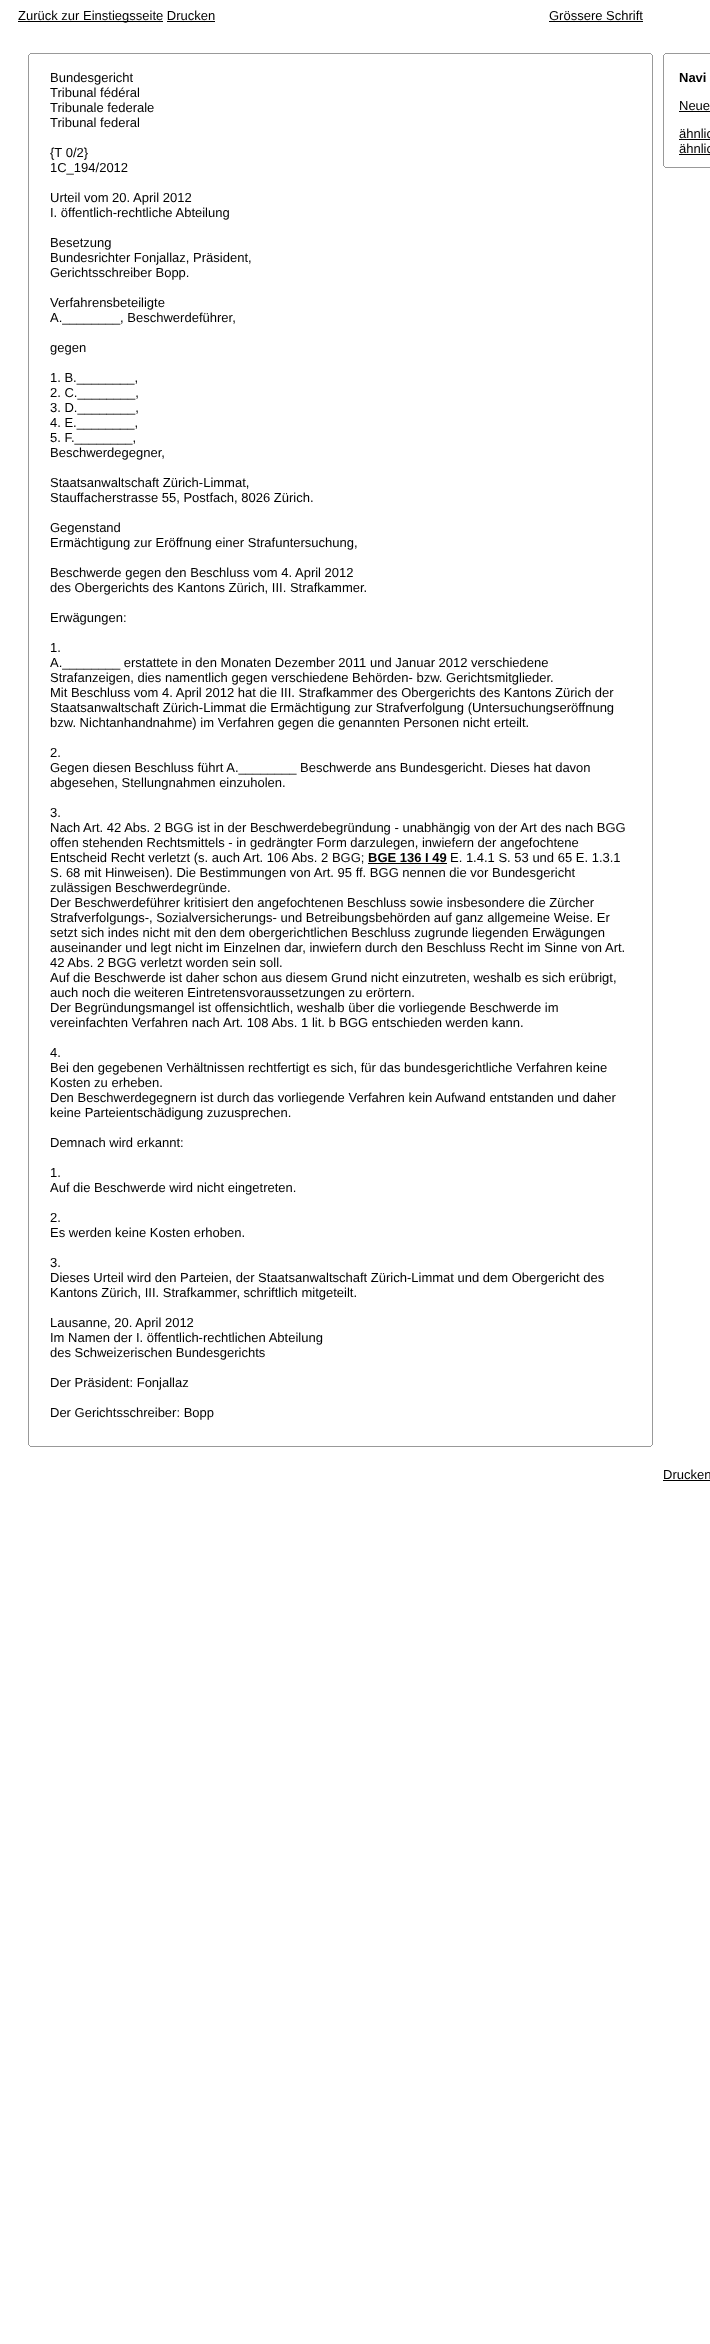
<svg xmlns="http://www.w3.org/2000/svg" width="710" height="2344">
<style>
.a{font:13px Liberation Sans;fill:#000}
.b{font:bold 13px Liberation Sans;fill:#000}
</style>
<rect width="100%" height="100%" fill="#fff"/>
<path fill="#000" d="M18 21h145v1H18z"/>
<path fill="#000" d="M167 21h48v1H167z"/>
<path fill="#000" d="M549 21h94v1H549z"/>
<path fill="#999" d="M30 53h621v1H30z"/>
<path fill="#999" d="M651 54h1v1H651z"/>
<path fill="#999" d="M29 54h1v1H29z"/>
<path fill="#999" d="M652 55h1v1390H652z"/>
<path fill="#999" d="M28 55h1v1390H28z"/>
<path fill="#000" d="M368 863h79v1H368z"/>
<path fill="#999" d="M651 1445h1v1H651z"/>
<path fill="#999" d="M29 1445h1v1H29z"/>
<path fill="#999" d="M30 1446h621v1H30z"/>
<path fill="#999" d="M665 53h45v1H665z"/>
<path fill="#999" d="M664 54h1v1H664z"/>
<path fill="#999" d="M663 55h1v111H663z"/>
<path fill="#000" d="M679 111h31v1H679z"/>
<path fill="#000" d="M679 139h31v1H679z"/>
<path fill="#000" d="M679 154h31v1H679z"/>
<path fill="#999" d="M664 166h1v1H664z"/>
<path fill="#999" d="M665 167h45v1H665z"/>
<path fill="#000" d="M663 1480h47v1H663z"/>
<text class="a" x="18" y="20">Zurück zur Einstiegsseite Drucken</text>
<text class="a" x="549" y="20">Grössere Schrift</text>
<text class="a" x="50" y="82">Bundesgericht</text>
<text class="a" x="50" y="97">Tribunal fédéral</text>
<text class="a" x="50" y="112">Tribunale federale</text>
<text class="a" x="50" y="127">Tribunal federal</text>
<text class="a" x="50" y="157">{T 0/2}</text>
<text class="a" x="50" y="172">1C_194/2012</text>
<text class="a" x="50" y="202">Urteil vom 20. April 2012</text>
<text class="a" x="50" y="217">I. öffentlich-rechtliche Abteilung</text>
<text class="a" x="50" y="247">Besetzung</text>
<text class="a" x="50" y="262">Bundesrichter Fonjallaz, Präsident,</text>
<text class="a" x="50" y="277">Gerichtsschreiber Bopp.</text>
<text class="a" x="50" y="307">Verfahrensbeteiligte</text>
<text class="a" x="50" y="322">A.________, Beschwerdeführer,</text>
<text class="a" x="50" y="352">gegen</text>
<text class="a" x="50" y="382">1. B.________,</text>
<text class="a" x="50" y="397">2. C.________,</text>
<text class="a" x="50" y="412">3. D.________,</text>
<text class="a" x="50" y="427">4. E.________,</text>
<text class="a" x="50" y="442">5. F.________,</text>
<text class="a" x="50" y="457">Beschwerdegegner,</text>
<text class="a" x="50" y="487">Staatsanwaltschaft Zürich-Limmat,</text>
<text class="a" x="50" y="502">Stauffacherstrasse 55, Postfach, 8026 Zürich.</text>
<text class="a" x="50" y="532">Gegenstand</text>
<text class="a" x="50" y="547">Ermächtigung zur Eröffnung einer Strafuntersuchung,</text>
<text class="a" x="50" y="577">Beschwerde gegen den Beschluss vom 4. April 2012</text>
<text class="a" x="50" y="592">des Obergerichts des Kantons Zürich, III. Strafkammer.</text>
<text class="a" x="50" y="622">Erwägungen:</text>
<text class="a" x="50" y="652">1.</text>
<text class="a" x="50" y="667">A.________ erstattete in den Monaten Dezember 2011 und Januar 2012 verschiedene</text>
<text class="a" x="50" y="682">Strafanzeigen, dies namentlich gegen verschiedene Behörden- bzw. Gerichtsmitglieder.</text>
<text class="a" x="50" y="697">Mit Beschluss vom 4. April 2012 hat die III. Strafkammer des Obergerichts des Kantons Zürich der</text>
<text class="a" x="50" y="712">Staatsanwaltschaft Zürich-Limmat die Ermächtigung zur Strafverfolgung (Untersuchungseröffnung</text>
<text class="a" x="50" y="727">bzw. Nichtanhandnahme) im Verfahren gegen die genannten Personen nicht erteilt.</text>
<text class="a" x="50" y="757">2.</text>
<text class="a" x="50" y="772">Gegen diesen Beschluss führt A.________ Beschwerde ans Bundesgericht. Dieses hat davon</text>
<text class="a" x="50" y="787">abgesehen, Stellungnahmen einzuholen.</text>
<text class="a" x="50" y="817">3.</text>
<text class="a" x="50" y="832">Nach</text>
<text class="a" x="83" y="832">Art. 42 Abs. 2 BGG ist in der Beschwerdebegründung - unabhängig von der Art des nach BGG</text>
<text class="a" x="50" y="847">offen stehenden Rechtsmittels - in gedrängter Form darzulegen, inwiefern der angefochtene</text>
<text class="a" x="50" y="862">Entscheid Recht verletzt (s. auch</text>
<text class="a" x="243" y="862">Art. 106 Abs. 2 BGG;</text>
<text class="b" x="368" y="862">BGE 136 I 49</text>
<text class="a" x="450" y="862">E. 1.4.1 S. 53 und 65 E. 1.3.1</text>
<text class="a" x="50" y="877">S. 68 mit Hinweisen). Die Bestimmungen von Art. 95 ff. BGG nennen die vor Bundesgericht</text>
<text class="a" x="50" y="892">zulässigen Beschwerdegründe.</text>
<text class="a" x="50" y="907">Der Beschwerdeführer kritisiert den angefochtenen Beschluss sowie insbesondere die Zürcher</text>
<text class="a" x="50" y="922">Strafverfolgungs-, Sozialversicherungs- und Betreibungsbehörden auf ganz allgemeine Weise. Er</text>
<text class="a" x="50" y="937">setzt sich indes nicht mit den dem obergerichtlichen Beschluss zugrunde liegenden Erwägungen</text>
<text class="a" x="50" y="952">auseinander und legt nicht im Einzelnen dar, inwiefern durch den Beschluss Recht im Sinne von Art.</text>
<text class="a" x="50" y="967">42 Abs. 2 BGG verletzt worden sein soll.</text>
<text class="a" x="50" y="982">Auf die Beschwerde ist daher schon aus diesem Grund nicht einzutreten, weshalb es sich erübrigt,</text>
<text class="a" x="50" y="997">auch noch die weiteren Eintretensvoraussetzungen zu erörtern.</text>
<text class="a" x="50" y="1012">Der Begründungsmangel ist offensichtlich, weshalb über die vorliegende Beschwerde im</text>
<text class="a" x="50" y="1027">vereinfachten Verfahren nach</text>
<text class="a" x="223" y="1027">Art. 108 Abs. 1 lit. b BGG entschieden werden kann.</text>
<text class="a" x="50" y="1057">4.</text>
<text class="a" x="50" y="1072">Bei den gegebenen Verhältnissen rechtfertigt es sich, für das bundesgerichtliche Verfahren keine</text>
<text class="a" x="50" y="1087">Kosten zu erheben.</text>
<text class="a" x="50" y="1102">Den Beschwerdegegnern ist durch das vorliegende Verfahren kein Aufwand entstanden und daher</text>
<text class="a" x="50" y="1117">keine Parteientschädigung zuzusprechen.</text>
<text class="a" x="50" y="1147">Demnach wird erkannt:</text>
<text class="a" x="50" y="1177">1.</text>
<text class="a" x="50" y="1192">Auf die Beschwerde wird nicht eingetreten.</text>
<text class="a" x="50" y="1222">2.</text>
<text class="a" x="50" y="1237">Es werden keine Kosten erhoben.</text>
<text class="a" x="50" y="1267">3.</text>
<text class="a" x="50" y="1282">Dieses Urteil wird den Parteien, der Staatsanwaltschaft Zürich-Limmat und dem Obergericht des</text>
<text class="a" x="50" y="1297">Kantons Zürich, III. Strafkammer, schriftlich mitgeteilt.</text>
<text class="a" x="50" y="1327">Lausanne, 20. April 2012</text>
<text class="a" x="50" y="1342">Im Namen der I. öffentlich-rechtlichen Abteilung</text>
<text class="a" x="50" y="1357">des Schweizerischen Bundesgerichts</text>
<text class="a" x="50" y="1387">Der Präsident: Fonjallaz</text>
<text class="a" x="50" y="1417">Der Gerichtsschreiber: Bopp</text>
<text class="b" x="679" y="82">Navi</text>
<text class="a" x="679" y="110">Neue</text>
<text class="a" x="679" y="138">ähnlic</text>
<text class="a" x="679" y="153">ähnlic</text>
<text class="a" x="663" y="1479">Drucken</text>
</svg>
